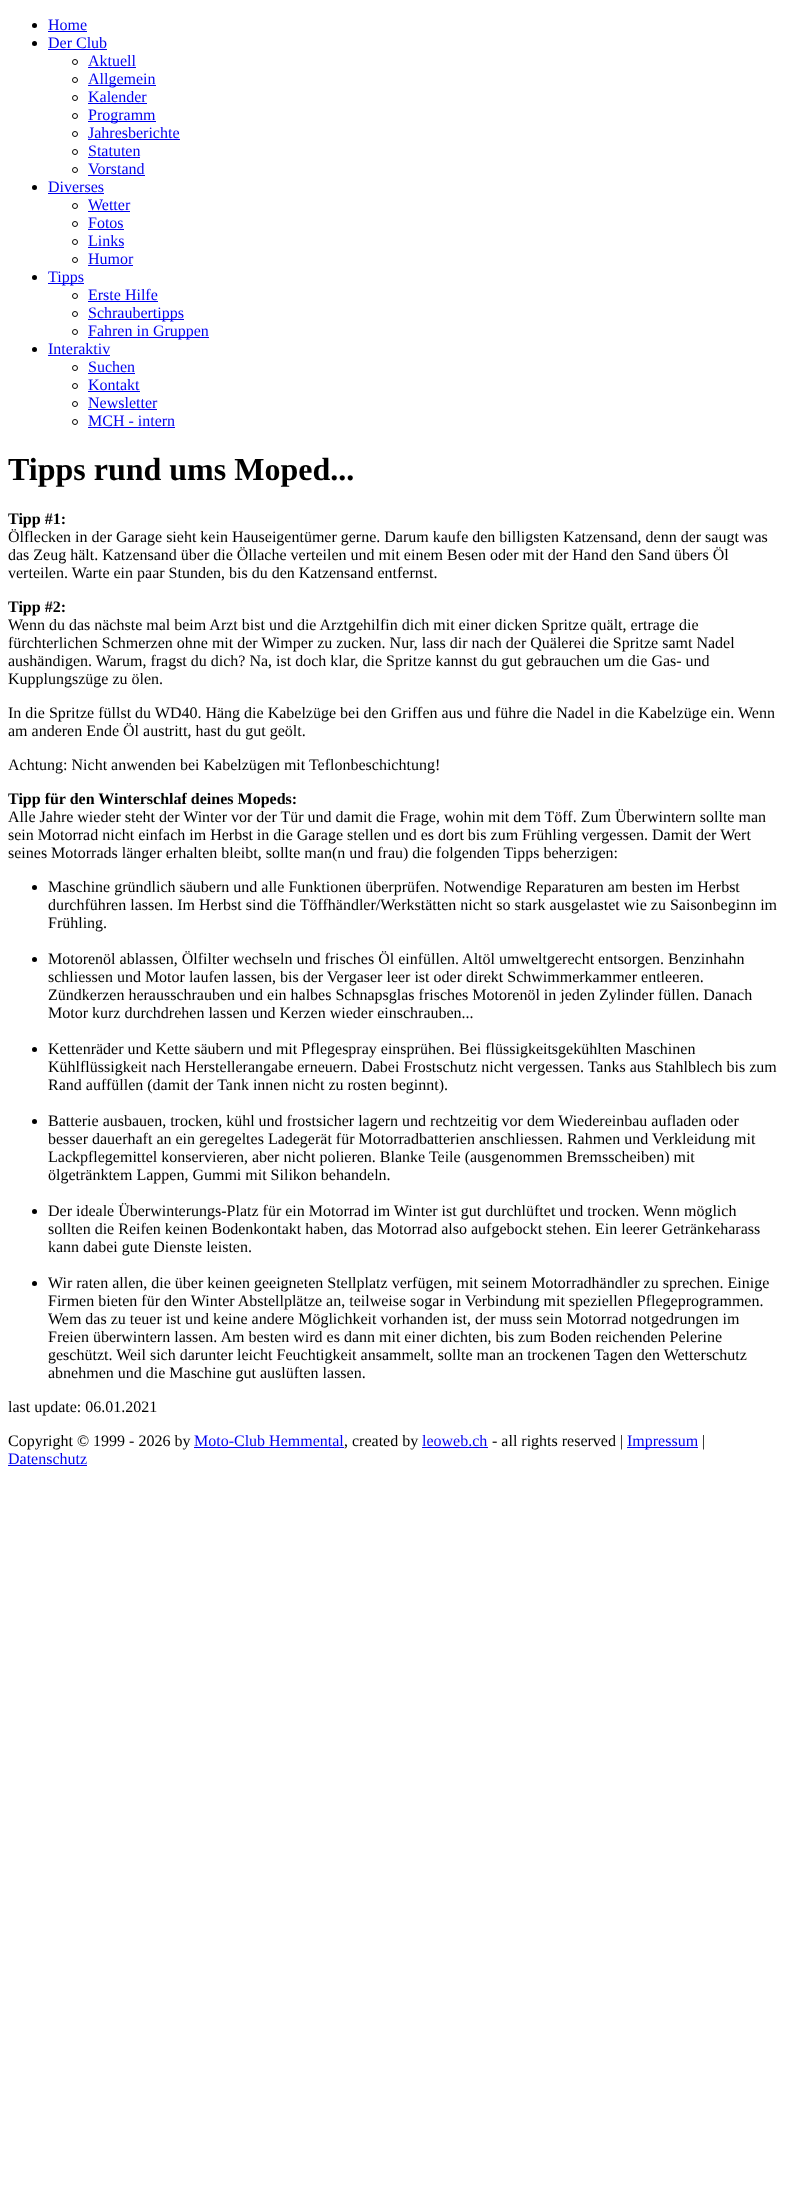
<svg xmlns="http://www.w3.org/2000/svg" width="786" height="2197">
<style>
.a{font:16px Liberation Serif;fill:#00e}
.b{font:bold 32px Liberation Serif;fill:#000}
.c{font:bold 16px Liberation Serif;fill:#000}
.d{font:16px Liberation Serif;fill:#000}
</style>
<rect width="100%" height="100%" fill="#fff"/>
<circle fill="#000" cx="34.5" cy="25.5" r="2.5"/>
<path fill="#00e" d="M48 31h39v1H48z"/>
<circle fill="#000" cx="34.5" cy="43.5" r="2.5"/>
<path fill="#00e" d="M48 49h59v1H48z"/>
<circle fill="none" stroke="#000" cx="75" cy="62" r="2.5"/>
<path fill="#00e" d="M88 67h48v1H88z"/>
<circle fill="none" stroke="#000" cx="75" cy="80" r="2.5"/>
<path fill="#00e" d="M88 85h68v1H88z"/>
<circle fill="none" stroke="#000" cx="75" cy="98" r="2.5"/>
<path fill="#00e" d="M88 103h59v1H88z"/>
<circle fill="none" stroke="#000" cx="75" cy="116" r="2.5"/>
<path fill="#00e" d="M88 121h68v1H88z"/>
<circle fill="none" stroke="#000" cx="75" cy="134" r="2.5"/>
<path fill="#00e" d="M88 139h92v1H88z"/>
<circle fill="none" stroke="#000" cx="75" cy="152" r="2.5"/>
<path fill="#00e" d="M88 157h52v1H88z"/>
<circle fill="none" stroke="#000" cx="75" cy="170" r="2.5"/>
<path fill="#00e" d="M88 175h57v1H88z"/>
<circle fill="#000" cx="34.5" cy="187.5" r="2.5"/>
<path fill="#00e" d="M48 193h56v1H48z"/>
<circle fill="none" stroke="#000" cx="75" cy="206" r="2.5"/>
<path fill="#00e" d="M88 211h42v1H88z"/>
<circle fill="none" stroke="#000" cx="75" cy="224" r="2.5"/>
<path fill="#00e" d="M88 229h36v1H88z"/>
<circle fill="none" stroke="#000" cx="75" cy="242" r="2.5"/>
<path fill="#00e" d="M88 247h36v1H88z"/>
<circle fill="none" stroke="#000" cx="75" cy="260" r="2.5"/>
<path fill="#00e" d="M88 265h45v1H88z"/>
<circle fill="#000" cx="34.5" cy="277.5" r="2.5"/>
<path fill="#00e" d="M48 283h36v1H48z"/>
<circle fill="none" stroke="#000" cx="75" cy="296" r="2.5"/>
<path fill="#00e" d="M88 301h70v1H88z"/>
<circle fill="none" stroke="#000" cx="75" cy="314" r="2.5"/>
<path fill="#00e" d="M88 319h96v1H88z"/>
<circle fill="none" stroke="#000" cx="75" cy="332" r="2.5"/>
<path fill="#00e" d="M88 337h121v1H88z"/>
<circle fill="#000" cx="34.5" cy="349.5" r="2.5"/>
<path fill="#00e" d="M48 355h62v1H48z"/>
<circle fill="none" stroke="#000" cx="75" cy="368" r="2.5"/>
<path fill="#00e" d="M88 373h47v1H88z"/>
<circle fill="none" stroke="#000" cx="75" cy="386" r="2.5"/>
<path fill="#00e" d="M88 391h52v1H88z"/>
<circle fill="none" stroke="#000" cx="75" cy="404" r="2.5"/>
<path fill="#00e" d="M88 409h69v1H88z"/>
<circle fill="none" stroke="#000" cx="75" cy="422" r="2.5"/>
<path fill="#00e" d="M88 427h87v1H88z"/>
<circle fill="#000" cx="34.5" cy="887.5" r="2.5"/>
<circle fill="#000" cx="34.5" cy="959.5" r="2.5"/>
<circle fill="#000" cx="34.5" cy="1049.5" r="2.5"/>
<circle fill="#000" cx="34.5" cy="1121.5" r="2.5"/>
<circle fill="#000" cx="34.5" cy="1211.5" r="2.5"/>
<circle fill="#000" cx="34.5" cy="1283.5" r="2.5"/>
<path fill="#00e" d="M194 1447h150v1H194z"/>
<path fill="#00e" d="M422 1447h66v1H422z"/>
<path fill="#00e" d="M627 1447h71v1H627z"/>
<path fill="#00e" d="M8 1465h79v1H8z"/>
<text class="a" x="48" y="30">Home</text>
<text class="a" x="48" y="48">Der Club</text>
<text class="a" x="88" y="66">Aktuell</text>
<text class="a" x="88" y="84">Allgemein</text>
<text class="a" x="88" y="102">Kalender</text>
<text class="a" x="88" y="120">Programm</text>
<text class="a" x="88" y="138">Jahresberichte</text>
<text class="a" x="88" y="156">Statuten</text>
<text class="a" x="88" y="174">Vorstand</text>
<text class="a" x="48" y="192">Diverses</text>
<text class="a" x="88" y="210">Wetter</text>
<text class="a" x="88" y="228">Fotos</text>
<text class="a" x="88" y="246">Links</text>
<text class="a" x="88" y="264">Humor</text>
<text class="a" x="48" y="282">Tipps</text>
<text class="a" x="88" y="300">Erste Hilfe</text>
<text class="a" x="88" y="318">Schraubertipps</text>
<text class="a" x="88" y="336">Fahren in Gruppen</text>
<text class="a" x="48" y="354">Interaktiv</text>
<text class="a" x="88" y="372">Suchen</text>
<text class="a" x="88" y="390">Kontakt</text>
<text class="a" x="88" y="408">Newsletter</text>
<text class="a" x="88" y="426">MCH - intern</text>
<text class="b" x="8" y="480">Tipps rund ums Moped...</text>
<text class="c" x="8" y="524">Tipp #1:</text>
<text class="d" x="8" y="542">Ölflecken in der Garage sieht kein Hauseigentümer gerne. Darum kaufe den billigsten Katzensand, denn der saugt was</text>
<text class="d" x="8" y="560">das Zeug hält. Katzensand über die Öllache verteilen und mit einem Besen oder mit der Hand den Sand übers Öl</text>
<text class="d" x="8" y="578">verteilen. Warte ein paar Stunden, bis du den Katzensand entfernst.</text>
<text class="c" x="8" y="612">Tipp #2:</text>
<text class="d" x="8" y="630">Wenn du das nächste mal beim Arzt bist und die Arztgehilfin dich mit einer dicken Spritze quält, ertrage die</text>
<text class="d" x="8" y="648">fürchterlichen Schmerzen ohne mit der Wimper zu zucken. Nur, lass dir nach der Quälerei die Spritze samt Nadel</text>
<text class="d" x="8" y="666">aushändigen. Warum, fragst du dich? Na, ist doch klar, die Spritze kannst du gut gebrauchen um die Gas- und</text>
<text class="d" x="8" y="684">Kupplungszüge zu ölen.</text>
<text class="d" x="8" y="718">In die Spritze füllst du WD40. Häng die Kabelzüge bei den Griffen aus und führe die Nadel in die Kabelzüge ein. Wenn</text>
<text class="d" x="8" y="736">am anderen Ende Öl austritt, hast du gut geölt.</text>
<text class="d" x="8" y="770">Achtung: Nicht anwenden bei Kabelzügen mit Teflonbeschichtung!</text>
<text class="c" x="8" y="804">Tipp für den Winterschlaf deines Mopeds:</text>
<text class="d" x="8" y="822">Alle Jahre wieder steht der Winter vor der Tür und damit die Frage, wohin mit dem Töff. Zum Überwintern sollte man</text>
<text class="d" x="8" y="840">sein Motorrad nicht einfach im Herbst in die Garage stellen und es dort bis zum Frühling vergessen. Damit der Wert</text>
<text class="d" x="8" y="858">seines Motorrads länger erhalten bleibt, sollte man(n und frau) die folgenden Tipps beherzigen:</text>
<text class="d" x="48" y="892">Maschine gründlich säubern und alle Funktionen überprüfen. Notwendige Reparaturen am besten im Herbst</text>
<text class="d" x="48" y="910">durchführen lassen. Im Herbst sind die Töffhändler/Werkstätten nicht so stark ausgelastet wie zu Saisonbeginn im</text>
<text class="d" x="48" y="928">Frühling.</text>
<text class="d" x="48" y="964">Motorenöl ablassen, Ölfilter wechseln und frisches Öl einfüllen. Altöl umweltgerecht entsorgen. Benzinhahn</text>
<text class="d" x="48" y="982">schliessen und Motor laufen lassen, bis der Vergaser leer ist oder direkt Schwimmerkammer entleeren.</text>
<text class="d" x="48" y="1000">Zündkerzen herausschrauben und ein halbes Schnapsglas frisches Motorenöl in jeden Zylinder füllen. Danach</text>
<text class="d" x="48" y="1018">Motor kurz durchdrehen lassen und Kerzen wieder einschrauben...</text>
<text class="d" x="48" y="1054">Kettenräder und Kette säubern und mit Pflegespray einsprühen. Bei flüssigkeitsgekühlten Maschinen</text>
<text class="d" x="48" y="1072">Kühlflüssigkeit nach Herstellerangabe erneuern. Dabei Frostschutz nicht vergessen. Tanks aus Stahlblech bis zum</text>
<text class="d" x="48" y="1090">Rand auffüllen (damit der Tank innen nicht zu rosten beginnt).</text>
<text class="d" x="48" y="1126">Batterie ausbauen, trocken, kühl und frostsicher lagern und rechtzeitig vor dem Wiedereinbau aufladen oder</text>
<text class="d" x="48" y="1144">besser dauerhaft an ein geregeltes Ladegerät für Motorradbatterien anschliessen. Rahmen und Verkleidung mit</text>
<text class="d" x="48" y="1162">Lackpflegemittel konservieren, aber nicht polieren. Blanke Teile (ausgenommen Bremsscheiben) mit</text>
<text class="d" x="48" y="1180">ölgetränktem Lappen, Gummi mit Silikon behandeln.</text>
<text class="d" x="48" y="1216">Der ideale Überwinterungs-Platz für ein Motorrad im Winter ist gut durchlüftet und trocken. Wenn möglich</text>
<text class="d" x="48" y="1234">sollten die Reifen keinen Bodenkontakt haben, das Motorrad also aufgebockt stehen. Ein leerer Getränkeharass</text>
<text class="d" x="48" y="1252">kann dabei gute Dienste leisten.</text>
<text class="d" x="48" y="1288">Wir raten allen, die über keinen geeigneten Stellplatz verfügen, mit seinem Motorradhändler zu sprechen. Einige</text>
<text class="d" x="48" y="1306">Firmen bieten für den Winter Abstellplätze an, teilweise sogar in Verbindung mit speziellen Pflegeprogrammen.</text>
<text class="d" x="48" y="1324">Wem das zu teuer ist und keine andere Möglichkeit vorhanden ist, der muss sein Motorrad notgedrungen im</text>
<text class="d" x="48" y="1342">Freien überwintern lassen. Am besten wird es dann mit einer dichten, bis zum Boden reichenden Pelerine</text>
<text class="d" x="48" y="1360">geschützt. Weil sich darunter leicht Feuchtigkeit ansammelt, sollte man an trockenen Tagen den Wetterschutz</text>
<text class="d" x="48" y="1378">abnehmen und die Maschine gut auslüften lassen.</text>
<text class="d" x="8" y="1412">last update: 06.01.2021</text>
<text class="d" x="8" y="1446">Copyright © 1999 - 2026 by</text>
<text class="a" x="194" y="1446">Moto-Club Hemmental</text>
<text class="d" x="344" y="1446">, created by</text>
<text class="a" x="422" y="1446">leoweb.ch</text>
<text class="d" x="492" y="1446">- all rights reserved |</text>
<text class="a" x="627" y="1446">Impressum</text>
<text class="d" x="702" y="1446">|</text>
<text class="a" x="8" y="1464">Datenschutz</text>
</svg>
